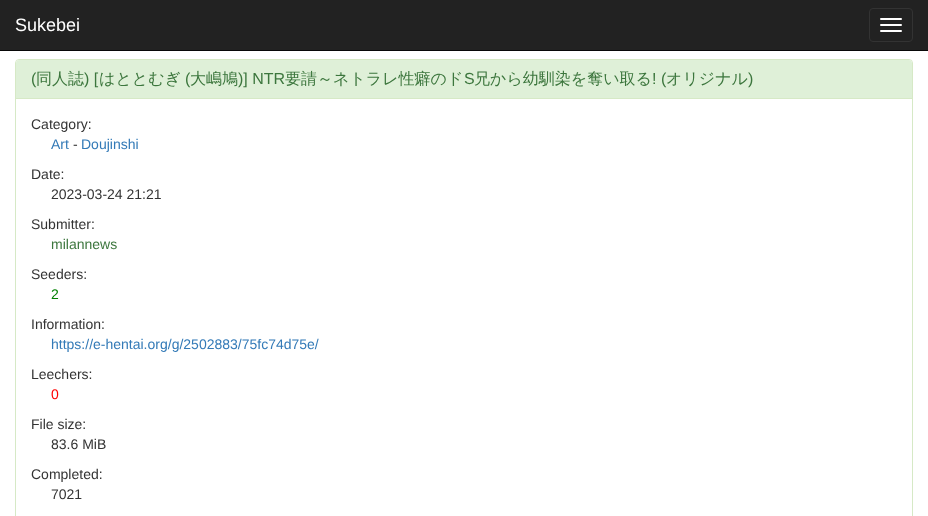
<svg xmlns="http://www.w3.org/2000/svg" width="928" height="516">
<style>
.a{font:18px Liberation Sans;fill:#fff}
.b{font:16px Liberation Sans;fill:#3c763d}
.c{font:500 16px WenQuanYi Zen Hei;fill:#3c763d}
.d{font:14px Liberation Sans;fill:#333}
.e{font:14px Liberation Sans;fill:#337ab7}
.f{font:14px Liberation Sans;fill:#3c763d}
.g{font:14px Liberation Sans;fill:#008000}
.h{font:14px Liberation Sans;fill:#f00}
</style>
<rect width="100%" height="100%" fill="#fff"/>
<path fill="#222" d="M0 0h928v50H0z"/>
<path fill="#080808" d="M0 50h928v1H0z"/>
<rect fill="none" stroke="#333" x="869.5" y="8.5" width="43" height="33" rx="3.5"/>
<rect fill="#fff" x="880" y="18" width="22" height="2" rx="1"/>
<rect fill="#fff" x="880" y="24" width="22" height="2" rx="1"/>
<rect fill="#fff" x="880" y="30" width="22" height="2" rx="1"/>
<rect fill="none" stroke="#d6e9c6" x="15.5" y="59.5" width="897" height="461" rx="3.5"/>
<path fill="#dff0d8" d="M19 60h890c1.5 0 3 1.5 3 3v36h-896v-36c0-1.5 1.5-3 3-3z"/>
<path fill="#d6e9c6" d="M16 98h896v1H16z"/>
<text class="a" x="15" y="31">Sukebei</text>
<text class="b" x="31" y="84">(</text>
<text class="c" x="36" y="84">同人誌</text>
<text class="b" x="84" y="84">) [</text>
<text class="c" x="99" y="84">はととむぎ</text>
<text class="b" x="185" y="84">(</text>
<text class="c" x="190" y="84">大嶋鳩</text>
<text class="b" x="238" y="84">)] NTR</text>
<text class="c" x="285" y="84">要請～ネトラレ性癖のド</text>
<text class="b" x="464" y="84">S</text>
<text class="c" x="474" y="84">兄から幼馴染を奪い取る</text>
<text class="b" x="652" y="84">! (</text>
<text class="c" x="666" y="84">オリジナル</text>
<text class="b" x="748" y="84">)</text>
<text class="d" x="31" y="129">Category:</text>
<text class="e" x="51" y="149">Art</text>
<text class="d" x="73" y="149">-</text>
<text class="e" x="81" y="149">Doujinshi</text>
<text class="d" x="31" y="179">Date:</text>
<text class="d" x="51" y="199">2023-03-24 21:21</text>
<text class="d" x="31" y="229">Submitter:</text>
<text class="f" x="51" y="249">milannews</text>
<text class="d" x="31" y="279">Seeders:</text>
<text class="g" x="51" y="299">2</text>
<text class="d" x="31" y="329">Information:</text>
<text class="e" x="51" y="349">https://e-hentai.org/g/2502883/75fc74d75e/</text>
<text class="d" x="31" y="379">Leechers:</text>
<text class="h" x="51" y="399">0</text>
<text class="d" x="31" y="429">File size:</text>
<text class="d" x="51" y="449">83.6 MiB</text>
<text class="d" x="31" y="479">Completed:</text>
<text class="d" x="51" y="499">7021</text>
</svg>
